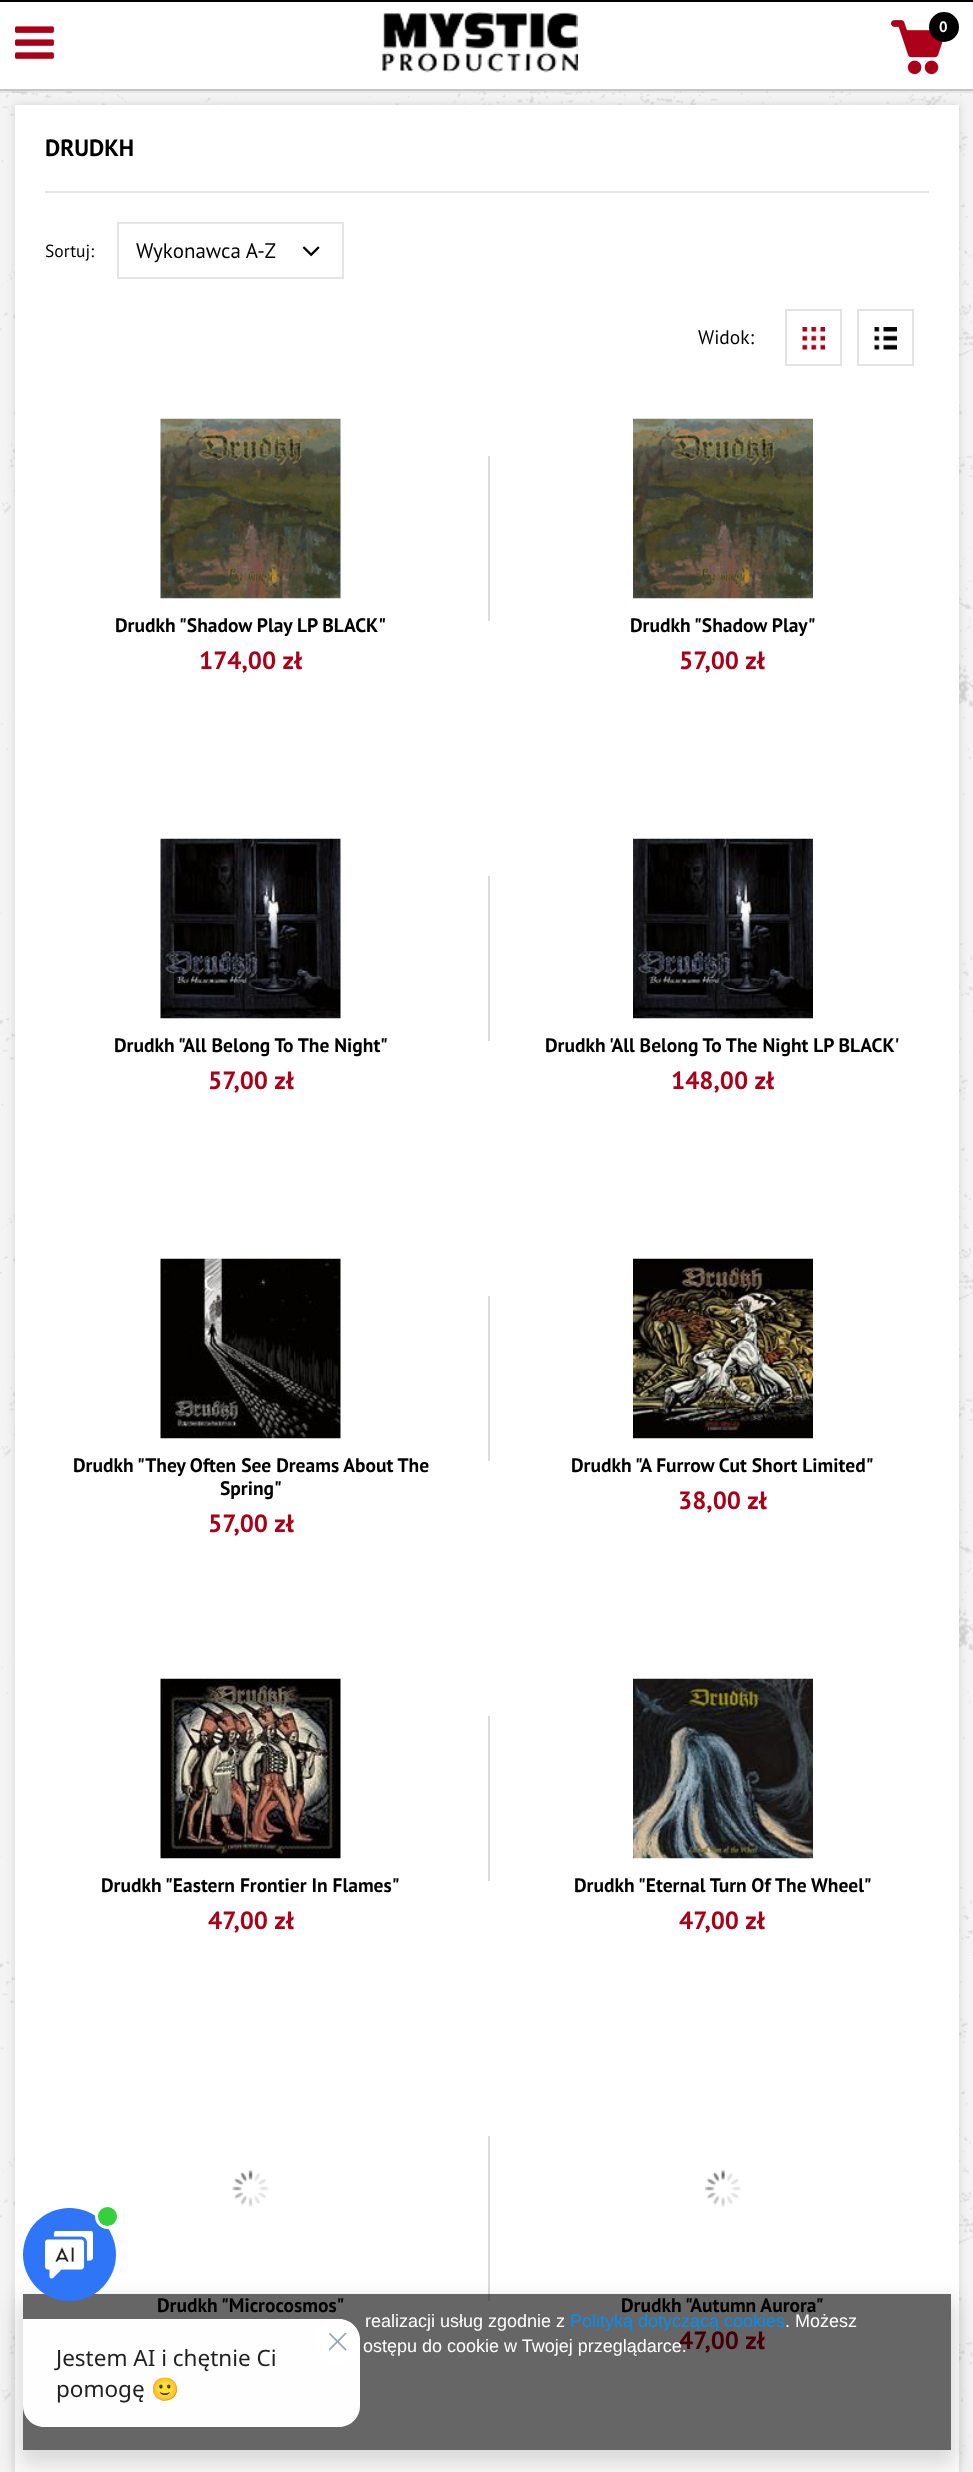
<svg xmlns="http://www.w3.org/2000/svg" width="973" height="2472">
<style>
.a{font:bold 15px PT Sans;fill:#fff}
.b{font:bold 23.5px PT Sans;fill:#000}
.c{font:17.5px PT Sans;fill:#000}
.d{font:21px PT Sans;fill:#000}
.e{font:19.5px PT Sans;fill:#000}
.f{font:bold 19.5px PT Sans;fill:#000}
.g{font:bold 25px PT Sans;fill:#ab0018}
.h{font:18px Liberation Sans;fill:#fff}
.i{font:18px Liberation Sans;fill:#0090f6}
.j{font:22.5px Noto Sans;fill:#212121}
.k{font:22.5px Noto Color Emoji;fill:#212121}
</style>
<defs>
<clipPath id="clip1"><path d="M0 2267h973v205h-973zm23 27h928v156h-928z" clip-rule="evenodd"/></clipPath>
</defs>
<rect width="100%" height="100%" fill="#f4f4f4"/>
<image href="1.png" x="0" y="91" width="973" height="2378"/>
<path fill="#0000001a" filter="blur(4px)" d="M14 104h946v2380H14z"/>
<path fill="#0000000d" d="M0 90v3h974v-90v87z"/>
<path fill="#fff" d="M0 2h973v87H0z"/>
<path fill="#c4c7c8" d="M0 89h973v2H0z"/>
<path fill="#000" d="M0 0h973v2H0z"/>
<image href="2.png" x="15" y="26" width="39" height="33"/>
<image href="3.png" x="382" y="12" width="196" height="61"/>
<image href="4.png" x="891" y="20" width="52" height="55"/>
<circle fill="#000" cx="944" cy="27" r="15"/>
<path fill="#fff" d="M15 105h944v299H15z"/>
<path fill="#e5e5e5" d="M45 191h884v2H45z"/>
<path fill="none" stroke="#e5e5e5" stroke-width="2" d="M118 223h225v55H118z"/>
<image href="5.png" x="302" y="246" width="18" height="11"/>
<image href="6.png" x="802" y="327" width="23" height="23"/>
<path fill="none" stroke="#e3e3e3" stroke-width="2" d="M786 310h55v55H786z"/>
<image href="7.png" x="874" y="327" width="23" height="23"/>
<path fill="none" stroke="#e3e3e3" stroke-width="2" d="M858 310h55v55H858z"/>
<path fill="#fff" d="M15 404h944v2068H15z"/>
<image href="8.png" x="160" y="418" width="181" height="181"/>
<path fill="#dcdcdc" d="M488 456h2v165H488z"/>
<image href="9.png" x="633" y="418" width="180" height="181"/>
<image href="10.png" x="160" y="838" width="181" height="181"/>
<path fill="#dcdcdc" d="M488 876h2v165H488z"/>
<image href="11.png" x="633" y="838" width="180" height="181"/>
<image href="12.png" x="160" y="1258" width="181" height="181"/>
<path fill="#dcdcdc" d="M488 1296h2v165H488z"/>
<image href="13.png" x="633" y="1258" width="180" height="181"/>
<image href="14.png" x="160" y="1678" width="181" height="181"/>
<path fill="#dcdcdc" d="M488 1716h2v165H488z"/>
<image href="15.png" x="633" y="1678" width="180" height="181"/>
<image href="16.png" x="232" y="2170" width="37" height="37"/>
<path fill="#dcdcdc" d="M488 2136h2v165H488z"/>
<image href="17.png" x="705" y="2170" width="36" height="37"/>
<g clip-path="url(#clip1)">
<path fill="#00000026" filter="blur(11px)" d="M18 2301h938v165H18z"/>
</g>
<text class="a" x="939" y="32">0</text>
<text class="b" x="45" y="156">DRUDKH</text>
<text class="c" x="45" y="257">Sortuj:</text>
<text class="d" x="136" y="258">Wykonawca A-Z</text>
<text class="e" x="698" y="344">Widok:</text>
<text class="f" x="115" y="632">Drudkh "Shadow Play LP BLACK"</text>
<text class="g" x="199" y="669">174,00 zł</text>
<text class="f" x="630" y="632">Drudkh "Shadow Play"</text>
<text class="g" x="679" y="669">57,00 zł</text>
<text class="f" x="114" y="1052">Drudkh "All Belong To The Night"</text>
<text class="g" x="208" y="1089">57,00 zł</text>
<text class="f" x="545" y="1052">Drudkh 'All Belong To The Night LP BLACK'</text>
<text class="g" x="671" y="1089">148,00 zł</text>
<text class="f" x="73" y="1472">Drudkh "They Often See Dreams About The</text>
<text class="f" x="220" y="1495">Spring"</text>
<text class="g" x="208" y="1532">57,00 zł</text>
<text class="f" x="571" y="1472">Drudkh "A Furrow Cut Short Limited"</text>
<text class="g" x="678" y="1509">38,00 zł</text>
<text class="f" x="101" y="1892">Drudkh "Eastern Frontier In Flames"</text>
<text class="g" x="208" y="1929">47,00 zł</text>
<text class="f" x="574" y="1892">Drudkh "Eternal Turn Of The Wheel"</text>
<text class="g" x="679" y="1929">47,00 zł</text>
<text class="f" x="157" y="2312">Drudkh "Microcosmos"</text>
<text class="f" x="621" y="2312">Drudkh "Autumn Aurora"</text>
<text class="g" x="679" y="2349">47,00 zł</text>
<path fill="#00000099" d="M23 2294h928v156H23z"/>
<text class="h" x="365" y="2327">realizacji usług zgodnie z</text>
<text class="i" x="570" y="2327">Polityką dotyczącą cookies</text>
<text class="h" x="785" y="2327">. Możesz</text>
<text class="h" x="363" y="2352">ostępu do cookie w Twojej przeglądarce.</text>
<circle fill="#2f75f7" cx="69.5" cy="2254.5" r="46.5"/>
<circle fill="#35d03d" stroke="#fff" stroke-width="3" cx="107.5" cy="2216.5" r="11"/>
<image href="18.png" x="45" y="2231" width="48" height="48"/>
<path fill="#fefefe" d="M23 2319h316c11.5 0 21 9.5 21 21v66c0 11.5-9.5 21-21 21h-295c-11.5 0-21-9.5-21-21z"/>
<circle fill="#fff" cx="337.5" cy="2341.5" r="22.5"/>
<image href="19.png" x="329" y="2333" width="18" height="18"/>
<text class="j" x="56" y="2366">Jestem AI i chętnie Ci</text>
<text class="j" x="56" y="2397">pomogę</text>
<text class="k" x="151" y="2397">🙂</text>
</svg>
